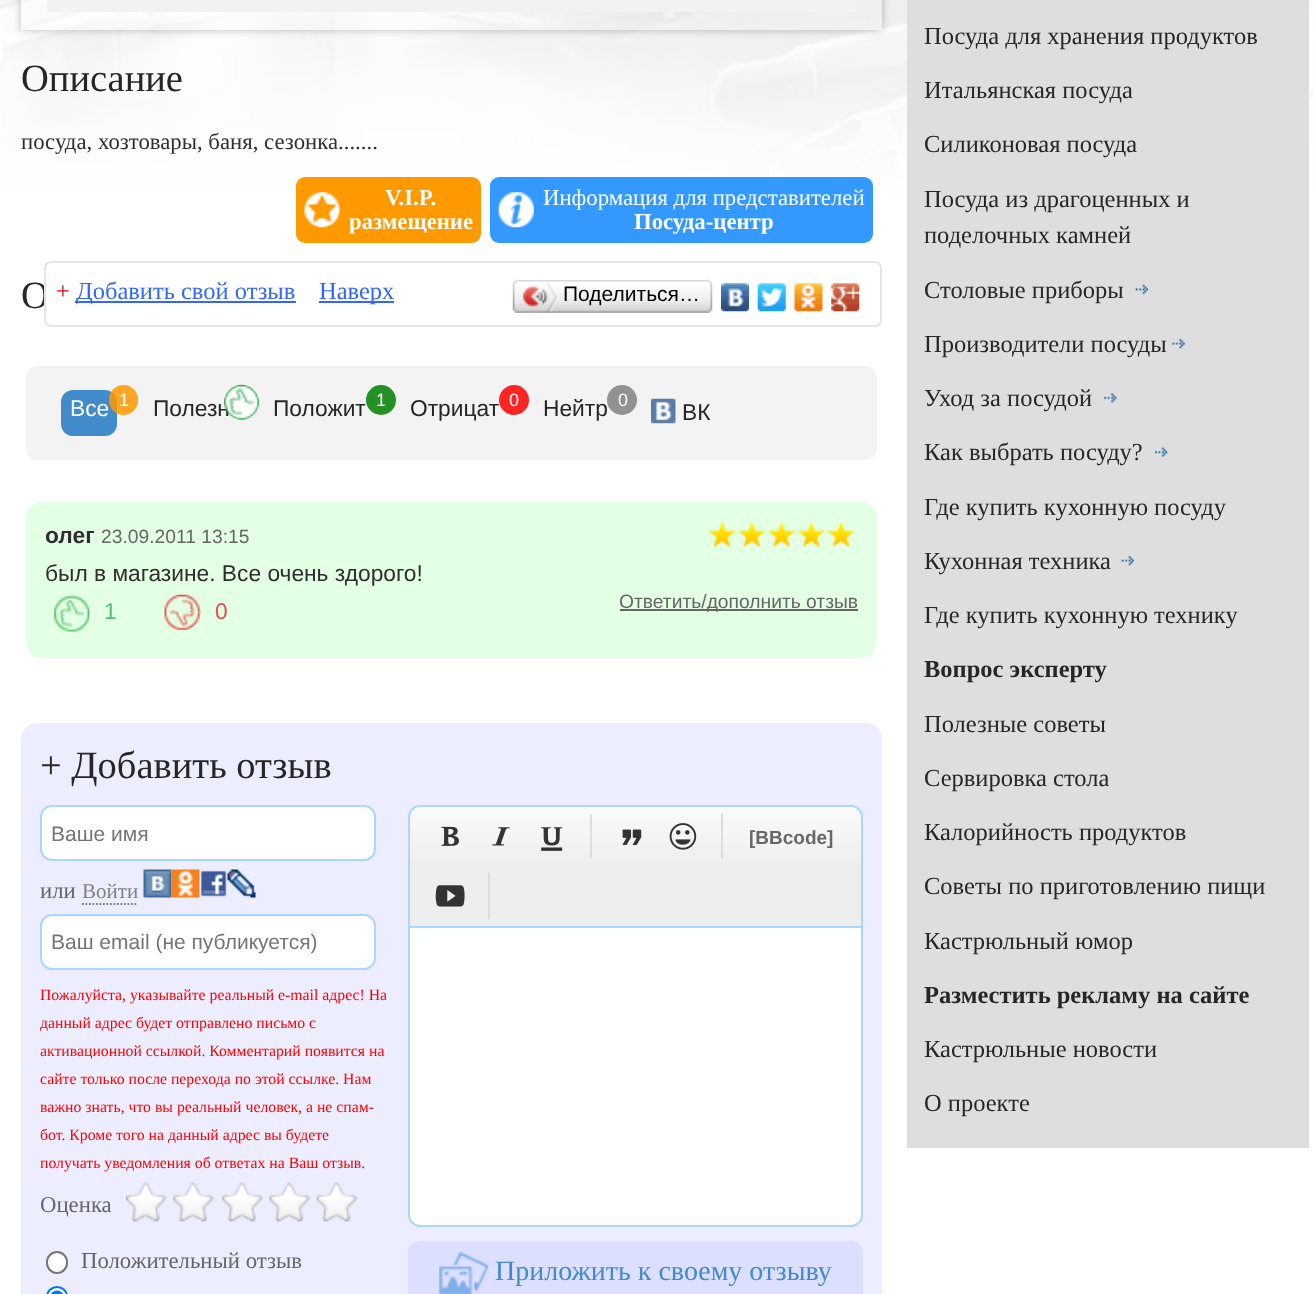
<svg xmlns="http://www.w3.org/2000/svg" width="1313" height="1294">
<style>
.a{font:38.5px Liberation Serif;fill:#262626}
.b{font:22.75px Liberation Serif;fill:#2f2f2f}
.c{font:bold 22.75px Liberation Serif;fill:#fff}
.d{font:22.75px Liberation Serif;fill:#fff}
.e{font:24.5px Liberation Serif;fill:#d20c0c}
.f{font:24.5px Liberation Serif;fill:#36f}
.g{font:21px Liberation Sans;fill:#000}
.h{font:22.75px Liberation Sans;fill:#fff}
.i{font:18px Liberation Sans;fill:#fff}
.j{font:22.75px Liberation Sans;fill:#262626}
.k{font:bold 22.75px Liberation Sans;fill:#2f2f2f}
.l{font:19.25px Liberation Sans;fill:#666}
.m{font:22.75px Liberation Sans;fill:#2f2f2f}
.n{font:22.75px Liberation Sans;fill:#56bf6c}
.o{font:22.75px Liberation Sans;fill:#e35152}
.p{font:21px Liberation Sans;fill:#757575}
.q{font:22.75px Liberation Serif;fill:#666}
.r{font:21px Liberation Serif;fill:#808080}
.s{font:15.75px Liberation Serif;fill:#f00}
.t{font:bold 19px Liberation Sans;fill:#666}
.u{font:28px Liberation Serif;fill:#428bca}
.v{font:24.5px Liberation Serif;fill:#262626}
.w{font:bold 24.5px Liberation Serif;fill:#262626}
</style>
<defs>
<clipPath id="clip1"><path d="M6 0h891v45h-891zm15-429h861v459h-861z" clip-rule="evenodd"/></clipPath>
<linearGradient id="g1" gradientUnits="userSpaceOnUse" x1="635" y1="926" x2="635" y2="807"><stop offset="0.5" stop-color="#eee"/><stop offset="1" stop-color="#fafafa"/></linearGradient>
</defs>
<rect width="100%" height="100%" fill="#fff"/>
<image href="1.png" x="0" y="0" width="1313" height="194"/>
<g clip-path="url(#clip1)">
<path fill="#2828284d" filter="blur(4.5px)" d="M21 -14h861v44H21z"/>
</g>
<path fill="#f2f2f2" d="M47 0h809v12H47z"/>
<rect fill="#f90" x="296" y="177" width="185" height="66" rx="9"/>
<image href="2.png" x="304" y="192" width="36" height="36"/>
<rect fill="#39f" x="490" y="177" width="383" height="66" rx="9"/>
<image href="3.png" x="498" y="192" width="36" height="36"/>
<rect fill="#f3f3f3" x="26" y="366" width="851" height="94" rx="12"/>
<rect fill="#428bca" x="61" y="390" width="56" height="46" rx="12"/>
<rect fill="#ff9900d9" x="109" y="385" width="29" height="30" rx="14.5"/>
<circle fill="#249124" cx="381" cy="400" r="15"/>
<circle fill="#fd2424" cx="514" cy="400" r="15"/>
<circle fill="#919191" cx="622" cy="400" r="15"/>
<image href="13.png" x="651" y="398" width="25" height="26"/>
<rect fill="#e3ffe4" stroke="#e3ffe4" stroke-width="2" x="27" y="503" width="849" height="154" rx="15"/>
<image href="14.png" x="708" y="521" width="29" height="27"/>
<image href="15.png" x="738" y="521" width="29" height="27"/>
<image href="16.png" x="768" y="521" width="28" height="27"/>
<image href="17.png" x="798" y="521" width="28" height="27"/>
<image href="14.png" x="827" y="521" width="29" height="27"/>
<image href="18.png" x="54" y="594" width="36" height="38"/>
<image href="19.png" x="164" y="594" width="38" height="36"/>
<path fill="#666" d="M620 609h238v2H620z"/>
<rect fill="#ecedff" stroke="#ecedff" stroke-width="2" x="22" y="724" width="859" height="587" rx="15"/>
<rect fill="#fff" stroke="#a9d7ff" stroke-width="2" x="41" y="806" width="334" height="54" rx="11"/>
<path fill="none" stroke="#808080" stroke-width="1.8" stroke-dasharray="1.75 1.75" d="M82 904h56"/>
<image href="20.png" x="143" y="869" width="29" height="29"/>
<image href="21.png" x="171" y="869" width="29" height="29"/>
<image href="22.png" x="200" y="870" width="27" height="27"/>
<image href="23.png" x="227" y="869" width="29" height="29"/>
<rect fill="#fff" stroke="#a9d7ff" stroke-width="2" x="41" y="915" width="334" height="54" rx="11"/>
<image href="24.png" x="126" y="1182" width="41" height="40"/>
<image href="25.png" x="173" y="1182" width="41" height="40"/>
<image href="26.png" x="222" y="1182" width="41" height="40"/>
<image href="27.png" x="269" y="1182" width="42" height="40"/>
<image href="28.png" x="316" y="1182" width="42" height="40"/>
<rect fill="#fff" stroke="#767676" stroke-width="2" x="47" y="1252" width="20" height="21" rx="10"/>
<rect fill="#fff" stroke="#0075ff" stroke-width="2" x="47" y="1287" width="20" height="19" rx="10"/>
<circle fill="#0075ff" cx="57" cy="1297.5" r="7"/>
<rect fill="#fff" stroke="#a9d7ff" stroke-width="2" x="409" y="806" width="453" height="420" rx="11"/>
<path fill="url(#g1)" d="M422 807h427c6.5 0 12 5.5 12 12v107h-451v-107c0-6.5 5.5-12 12-12z"/>
<path fill="#a9d7ff" d="M410 926h451v2H410z"/>
<path fill="#ddd" d="M590 814h2v45H590z"/>
<image href="29.png" x="441" y="826" width="18" height="20"/>
<image href="30.png" x="492" y="827" width="18" height="19"/>
<image href="31.png" x="541" y="827" width="22" height="24"/>
<path fill="#ddd" d="M721 814h2v45H721z"/>
<image href="32.png" x="622" y="829" width="20" height="16"/>
<image href="33.png" x="669" y="823" width="28" height="27"/>
<path fill="#ddd" d="M488 873h2v46H488z"/>
<image href="34.png" x="435" y="885" width="30" height="22"/>
<rect fill="#dcdfff" x="408" y="1241" width="455" height="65" rx="12"/>
<image href="35.png" x="439" y="1251" width="50" height="43"/>
<path fill="#dedede" d="M907 0h402v1148H907z"/>
<image href="36.png" x="1135" y="284" width="13" height="11"/>
<image href="37.png" x="1172" y="338" width="13" height="11"/>
<image href="38.png" x="1104" y="393" width="13" height="10"/>
<image href="39.png" x="1155" y="447" width="13" height="10"/>
<image href="40.png" x="1121" y="555" width="13" height="11"/>
<text class="a" x="21" y="91">Описание</text>
<text class="b" x="21" y="149">посуда, хозтовары, баня, сезонка.......</text>
<text class="c" x="385" y="205">V.I.P.</text>
<text class="c" x="349" y="229">размещение</text>
<text class="d" x="543" y="205">Информация для представителей</text>
<text class="c" x="634" y="229">Посуда-центр</text>
<text class="a" x="21" y="308">О</text>
<rect fill="#fff" stroke="#e5e5e5" stroke-width="2" x="45" y="262" width="836" height="64" rx="6"/>
<text class="e" x="56" y="299">+</text>
<path fill="#36f" d="M75 301h221v2H75z"/>
<text class="f" x="76" y="299">Добавить свой отзыв</text>
<path fill="#36f" d="M319 301h75v2H319z"/>
<text class="f" x="319" y="299">Наверх</text>
<image href="4.png" x="518" y="280" width="189" height="33"/>
<image href="5.png" x="512" y="279" width="6" height="34"/>
<image href="6.png" x="523" y="281" width="35" height="31"/>
<text class="g" x="563" y="301">Поделиться…</text>
<image href="7.png" x="707" y="279" width="6" height="34"/>
<image href="8.png" x="721" y="283" width="28" height="29"/>
<image href="9.png" x="757" y="283" width="29" height="29"/>
<image href="10.png" x="794" y="283" width="29" height="29"/>
<image href="11.png" x="831" y="283" width="29" height="29"/>
<text class="h" x="70" y="416">Все</text>
<text class="i" x="119" y="406">1</text>
<text class="j" x="153" y="416">Полезн</text>
<image href="12.png" x="224" y="384" width="36" height="36"/>
<text class="j" x="273" y="416">Положит</text>
<text class="i" x="376" y="406">1</text>
<text class="j" x="410" y="416">Отрицат</text>
<text class="i" x="509" y="406">0</text>
<text class="j" x="543" y="416">Нейтр</text>
<text class="i" x="618" y="406">0</text>
<text class="j" x="682" y="420">ВК</text>
<text class="k" x="45" y="543">олег</text>
<text class="l" x="101" y="543">23.09.2011 13:15</text>
<text class="m" x="45" y="581">был в магазине. Все очень здорого!</text>
<text class="n" x="104" y="619">1</text>
<text class="o" x="215" y="619">0</text>
<text class="l" x="619" y="608">Ответить/дополнить отзыв</text>
<text class="a" x="40" y="778">+ Добавить отзыв</text>
<text class="p" x="51" y="841">Ваше имя</text>
<text class="q" x="40" y="898">или</text>
<text class="r" x="82" y="898">Войти</text>
<text class="p" x="51" y="949">Ваш email (не публикуется)</text>
<text class="s" x="40" y="1000">Пожалуйста, указывайте реальный e-mail адрес! На</text>
<text class="s" x="40" y="1028">данный адрес будет отправлено письмо с</text>
<text class="s" x="40" y="1056">активационной ссылкой. Комментарий появится на</text>
<text class="s" x="40" y="1084">сайте только после перехода по этой ссылке. Нам</text>
<text class="s" x="40" y="1112">важно знать, что вы реальный человек, а не спам-</text>
<text class="s" x="40" y="1140">бот. Кроме того на данный адрес вы будете</text>
<text class="s" x="40" y="1168">получать уведомления об ответах на Ваш отзыв.</text>
<text class="q" x="40" y="1212">Оценка</text>
<text class="q" x="81" y="1268">Положительный отзыв</text>
<text class="t" x="749" y="844">[BBcode]</text>
<text class="u" x="495" y="1280">Приложить к своему отзыву</text>
<text class="v" x="924" y="44">Посуда для хранения продуктов</text>
<text class="v" x="924" y="98">Итальянская посуда</text>
<text class="v" x="924" y="152">Силиконовая посуда</text>
<text class="v" x="924" y="207">Посуда из драгоценных и</text>
<text class="v" x="924" y="243">поделочных камней</text>
<text class="v" x="924" y="298">Столовые приборы</text>
<text class="v" x="924" y="352">Производители посуды</text>
<text class="v" x="924" y="406">Уход за посудой</text>
<text class="v" x="924" y="460">Как выбрать посуду?</text>
<text class="v" x="924" y="515">Где купить кухонную посуду</text>
<text class="v" x="924" y="569">Кухонная техника</text>
<text class="v" x="924" y="623">Где купить кухонную технику</text>
<text class="w" x="924" y="677">Вопрос эксперту</text>
<text class="v" x="924" y="732">Полезные советы</text>
<text class="v" x="924" y="786">Сервировка стола</text>
<text class="v" x="924" y="840">Калорийность продуктов</text>
<text class="v" x="924" y="894">Советы по приготовлению пищи</text>
<text class="v" x="924" y="949">Кастрюльный юмор</text>
<text class="w" x="924" y="1003">Разместить рекламу на сайте</text>
<text class="v" x="924" y="1057">Кастрюльные новости</text>
<text class="v" x="924" y="1111">О проекте</text>
</svg>
